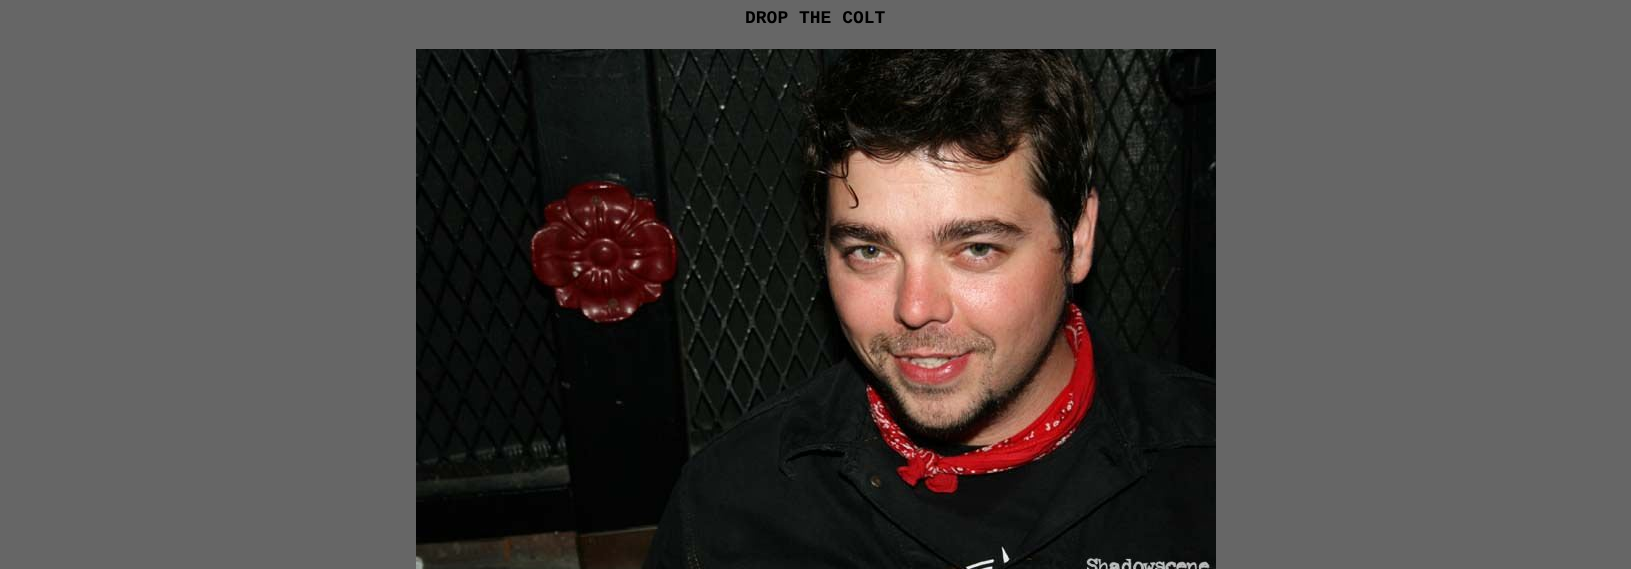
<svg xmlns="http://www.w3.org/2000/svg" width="1631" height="569">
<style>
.a{font:bold 18px Liberation Mono;fill:#000}
</style>
<rect width="100%" height="100%" fill="#666"/>
<image href="1.png" x="416" y="49" width="800" height="520"/>
<text class="a" x="745" y="23">DROP THE COLT</text>
</svg>
